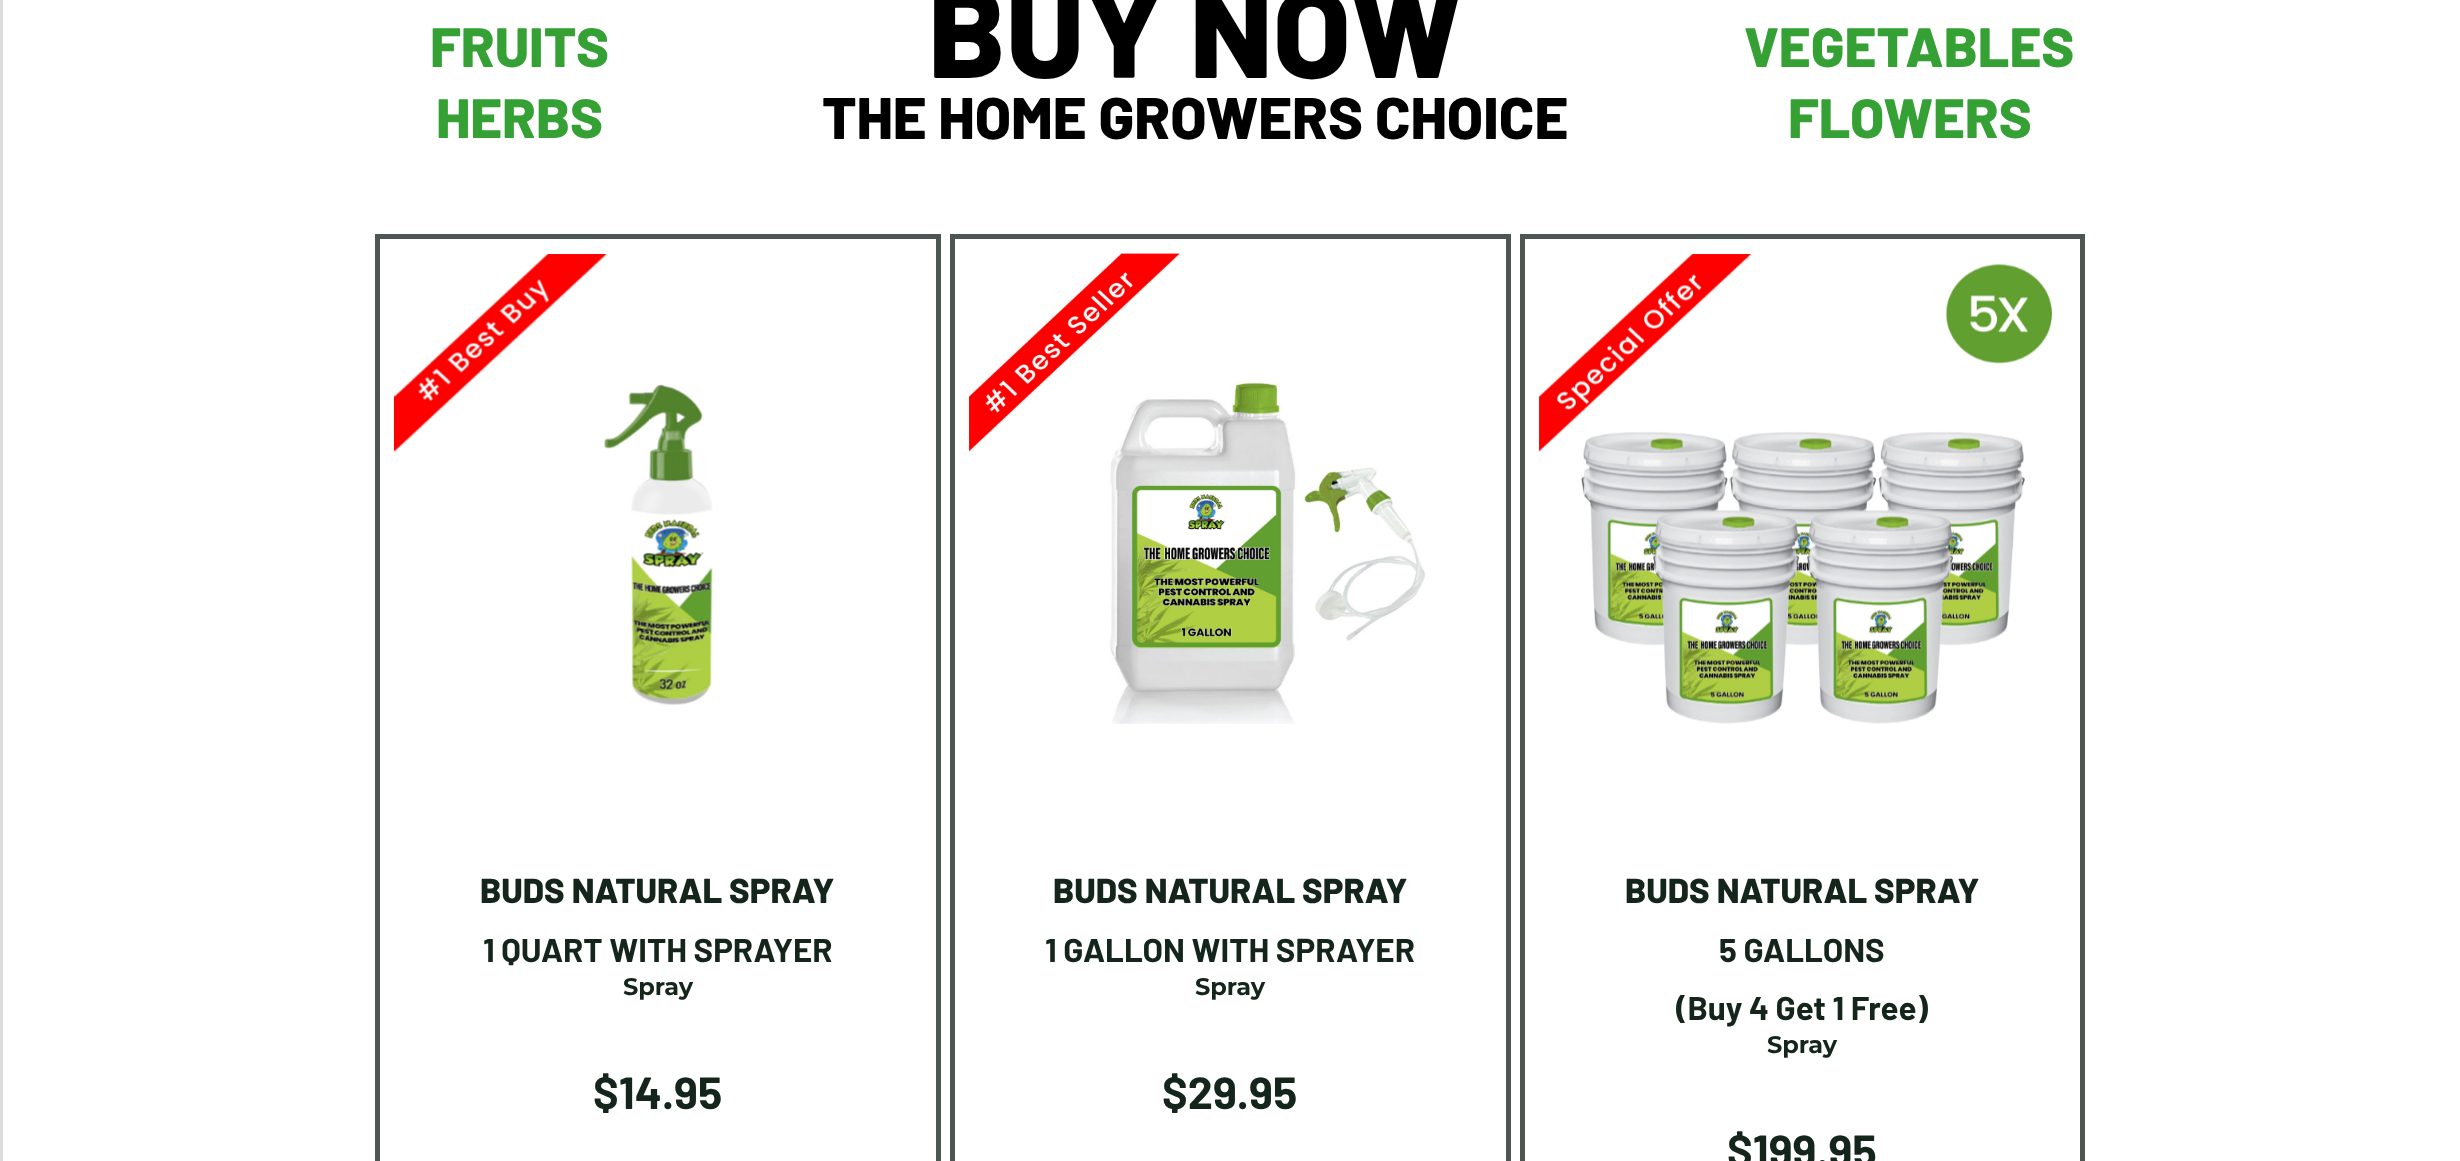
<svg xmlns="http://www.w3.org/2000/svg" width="2460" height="1161">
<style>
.a{font:800 55.25px Barlow;fill:#35a134}
.b{font:800 126px Barlow;fill:#000}
.c{font:800 58.6px Barlow;fill:#000}
.d{font:800 34.5px Barlow;fill:#14261c}
.e{font:bold 33px Barlow;fill:#14261c}
.f{font:bold 24px Montserrat;fill:#14261c}
.g{font:bold 45px Barlow;fill:#14261c}
</style>
<rect width="100%" height="100%" fill="#fff"/>
<path fill="#ddd" d="M0 0h3v1161H0z"/>
<path fill="none" stroke="#4e5652" stroke-width="5" d="M377.5 236.5h561v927H377.5z"/>
<image href="1.png" x="394" y="254" width="319" height="451"/>
<path fill="none" stroke="#4e5652" stroke-width="5" d="M952.5 236.5h556v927H952.5z"/>
<image href="2.png" x="969" y="253" width="457" height="471"/>
<path fill="none" stroke="#4e5652" stroke-width="5" d="M1522.5 236.5h560v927H1522.5z"/>
<image href="3.png" x="1539" y="254" width="514" height="470"/>
<text class="a" x="430" y="67">FRUITS</text>
<text class="a" x="436" y="138">HERBS</text>
<text class="b" x="928" y="78">BUY NOW</text>
<text class="c" x="822" y="139">THE HOME GROWERS CHOICE</text>
<text class="a" x="1744" y="67">VEGETABLES</text>
<text class="a" x="1788" y="138">FLOWERS</text>
<text class="d" x="480" y="903">BUDS NATURAL SPRAY</text>
<text class="e" x="483" y="962">1 QUART WITH SPRAYER</text>
<text class="f" x="623" y="995">Spray</text>
<text class="g" x="593" y="1109">$14.95</text>
<text class="d" x="1053" y="903">BUDS NATURAL SPRAY</text>
<text class="e" x="1045" y="962">1 GALLON WITH SPRAYER</text>
<text class="f" x="1195" y="995">Spray</text>
<text class="g" x="1162" y="1109">$29.95</text>
<text class="d" x="1625" y="903">BUDS NATURAL SPRAY</text>
<text class="e" x="1719" y="962">5 GALLONS</text>
<text class="e" x="1676" y="1020">(Buy 4 Get 1 Free)</text>
<text class="f" x="1767" y="1053">Spray</text>
<text class="g" x="1727" y="1167">$199.95</text>
</svg>
